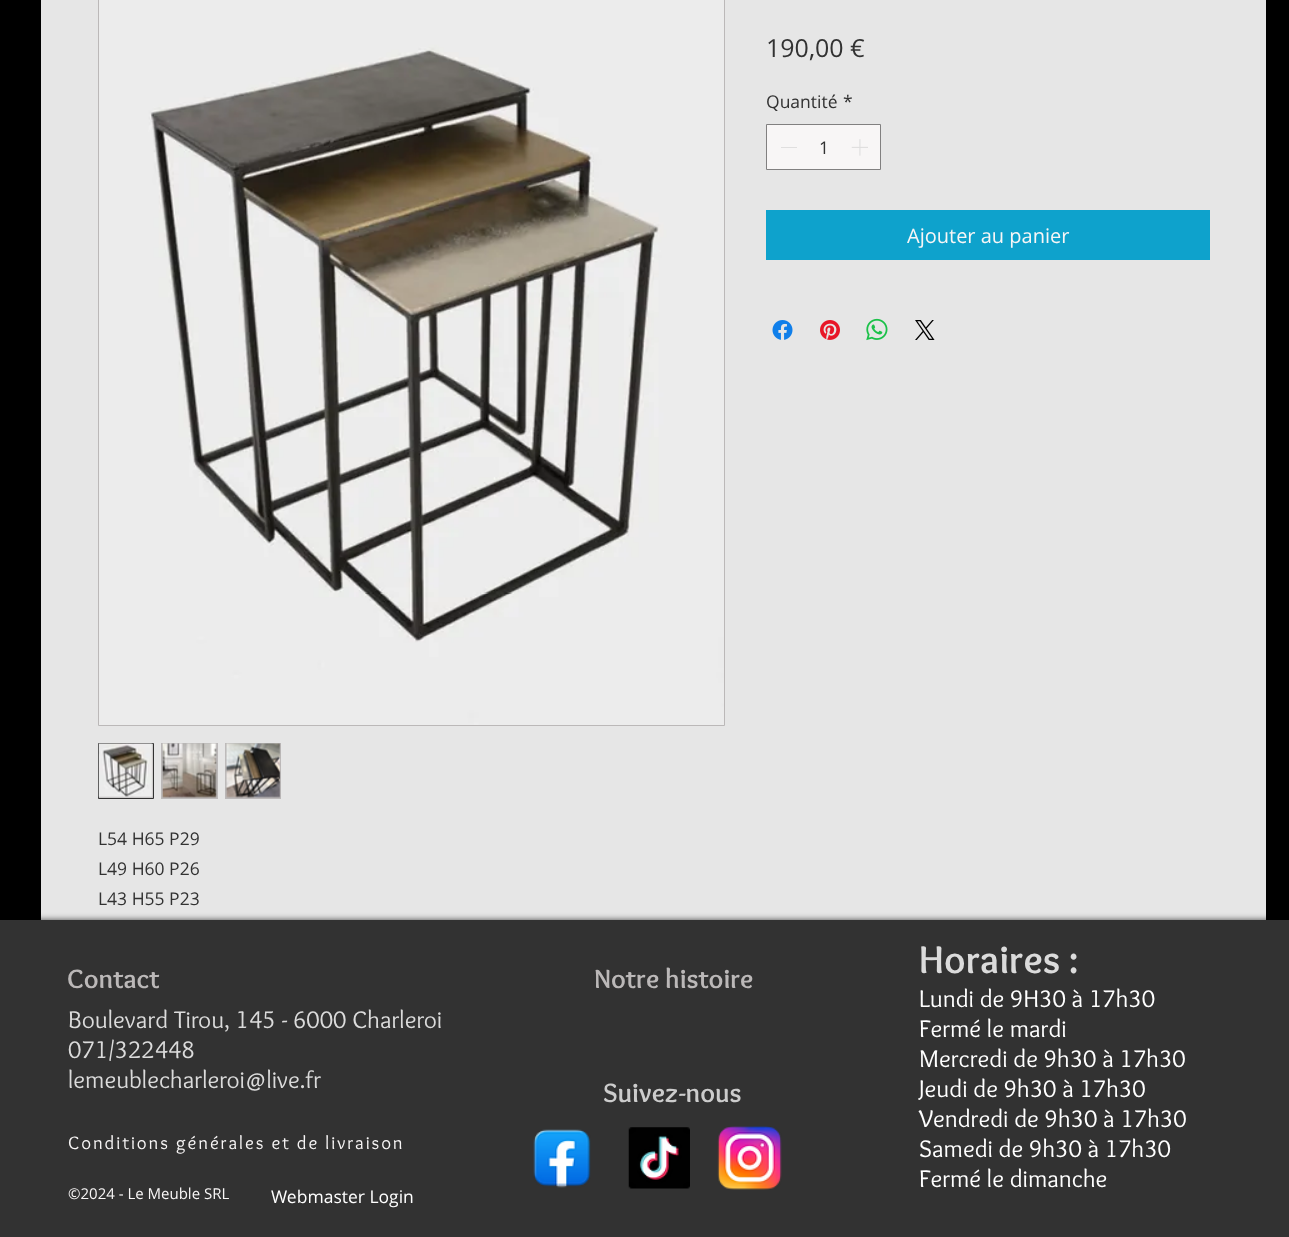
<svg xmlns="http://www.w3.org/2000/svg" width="1289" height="1237">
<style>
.a{font:25px Open Sans;fill:#323232}
.b{font:17.5px Open Sans;fill:#323232}
.c{font:20px Open Sans;fill:#f8f6f6}
.d{font:bold 27.5px Overlock;fill:#bbb8b8}
.e{font:bold 40px Overlock;fill:#dbdbdb}
.f{font:25px Overlock;fill:#fff}
.g{font:25px Overlock;fill:#dbdbdb}
.h{font:bold 27.5px Overlock;fill:#ccc}
.i{font:18.75px Overlock;letter-spacing:1.9px;fill:#f8f6f6}
.j{font:15px Open Sans;fill:#f8f6f6}
.k{font:17.5px Open Sans;fill:#fff}
</style>
<rect width="100%" height="100%" fill="#000"/>
<path fill="#e6e6e6" d="M41 0h1225v920H41z"/>
<path fill="#f8f6f6" stroke="#818080" d="M766.5 124.5h114v45H766.5z"/>
<path fill="#e0dfdf" d="M781 147h16v1H781z"/>
<image href="1.png" x="851" y="139" width="17" height="17"/>
<path fill="#0ea2cc" d="M766 210h444v50H766z"/>
<image href="2.png" x="772" y="320" width="21" height="20"/>
<image href="3.png" x="820" y="320" width="20" height="20"/>
<image href="4.png" x="866" y="318" width="22" height="23"/>
<image href="5.png" x="915" y="320" width="20" height="20"/>
<path fill="none" stroke="#bbb8b8" d="M98.5 -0.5h626v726H98.5z"/>
<image href="6.png" x="99" y="0" width="625" height="725"/>
<path fill="#bbb8b8" stroke="#323232" d="M98.5 743.5h55v55H98.5z"/>
<image href="7.png" x="98" y="743" width="55" height="55"/>
<path fill="#bbb8b8" d="M161 743h57v56H161z"/>
<image href="8.png" x="162" y="743" width="55" height="55"/>
<path fill="#bbb8b8" d="M225 743h56v56H225z"/>
<image href="9.png" x="225" y="743" width="56" height="55"/>
<path fill="#000000b3" filter="blur(3px)" d="M0 920h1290v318H0z"/>
<path fill="#323232" d="M0 920h1289v317H0z"/>
<image href="10.png" x="533" y="1129" width="58" height="59"/>
<image href="11.png" x="628" y="1127" width="62" height="62"/>
<image href="12.png" x="717" y="1126" width="65" height="64"/>
<text class="a" x="766" y="57">190,00 €</text>
<text class="b" x="766" y="108">Quantité</text>
<text class="b" x="843" y="108">*</text>
<text class="b" x="819" y="154">1</text>
<text class="c" x="907" y="243">Ajouter au panier</text>
<text class="b" x="98" y="845">L54 H65 P29</text>
<text class="b" x="98" y="875">L49 H60 P26</text>
<text class="b" x="98" y="905">L43 H55 P23</text>
<text class="d" x="67" y="988">Contact</text>
<text class="d" x="594" y="988">Notre histoire</text>
<text class="e" x="919" y="973">Horaires :</text>
<text class="f" x="919" y="1007">Lundi de 9H30 à 17h30</text>
<text class="f" x="919" y="1037">Fermé le mardi</text>
<text class="f" x="919" y="1067">Mercredi de 9h30 à 17h30</text>
<text class="f" x="919" y="1097">Jeudi de 9h30 à 17h30</text>
<text class="f" x="919" y="1127">Vendredi de 9h30 à 17h30</text>
<text class="f" x="919" y="1157">Samedi de 9h30 à 17h30</text>
<text class="f" x="919" y="1187">Fermé le dimanche</text>
<text class="g" x="68" y="1028">Boulevard Tirou, 145 - 6000 Charleroi</text>
<text class="g" x="68" y="1058">071/322448</text>
<text class="g" x="68" y="1088">lemeublecharleroi@live.fr</text>
<text class="h" x="603" y="1102">Suivez-nous</text>
<text class="i" x="68" y="1149">Conditions générales et de livraison</text>
<text class="j" x="68" y="1199">©2024 - Le Meuble SRL</text>
<text class="k" x="271" y="1203">Webmaster Login</text>
</svg>
